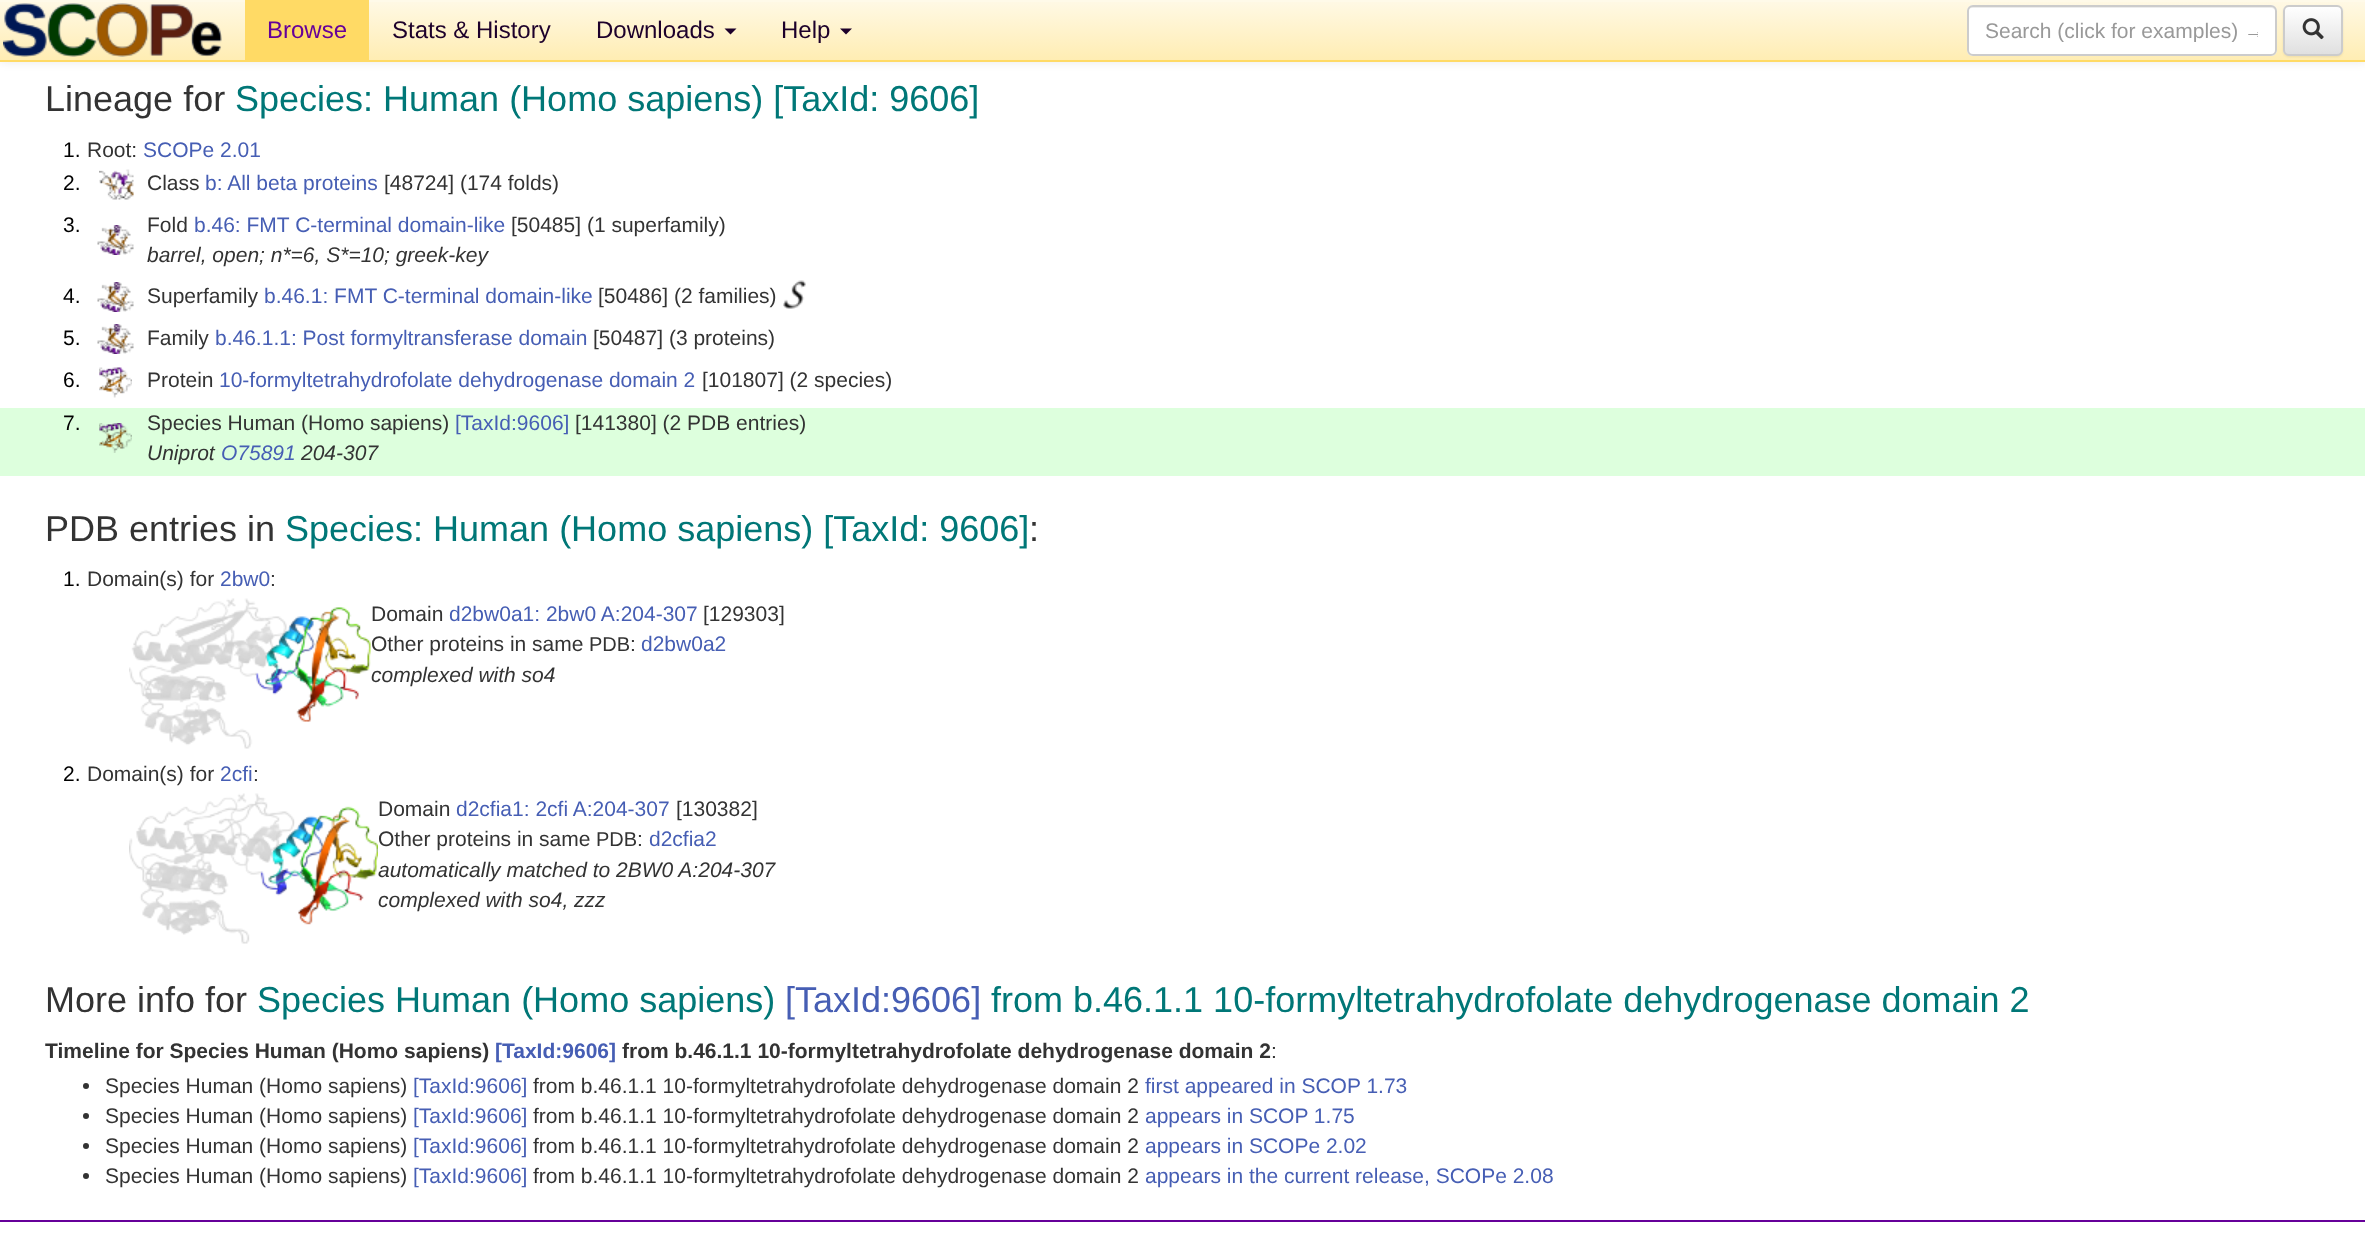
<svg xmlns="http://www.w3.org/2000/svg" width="2365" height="1239">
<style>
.a{font:24px Liberation Sans;fill:#609}
.b{font:24px Liberation Sans;fill:#1d002b}
.c{font:21px Liberation Sans;fill:#999}
.d{font:36px Liberation Sans;fill:#333}
.e{font:36px Liberation Sans;fill:#077}
.f{font:21px Liberation Sans;fill:#000}
.g{font:21px Liberation Sans;fill:#333}
.h{font:21px Liberation Sans;fill:#465eb4}
.i{font:italic 21px Liberation Sans;fill:#333}
.j{font:italic 21px Liberation Sans;fill:#465eb4}
.k{font:20px Liberation Sans;fill:#333}
.l{font:36px Liberation Sans;fill:#465eb4}
.m{font:bold 21px Liberation Sans;fill:#333}
.n{font:bold 21px Liberation Sans;fill:#465eb4}
</style>
<defs>
<linearGradient id="g1" gradientUnits="userSpaceOnUse" x1="1183" y1="0" x2="1183" y2="60"><stop offset="0" stop-color="#fff9e6"/><stop offset="1" stop-color="#ffedb3"/></linearGradient>
<clipPath id="clip1"><rect x="2283" y="5" width="60" height="51" rx="6"/></clipPath>
<linearGradient id="g2" gradientUnits="userSpaceOnUse" x1="2313" y1="6" x2="2313" y2="54"><stop offset="0" stop-color="#fff"/><stop offset="1" stop-color="#e0e0e0"/></linearGradient>
<clipPath id="clip2"><path d="M1986 18h272v24H1986z"/></clipPath>
</defs>
<rect width="100%" height="100%" fill="#fff"/>
<path fill="#00000012" filter="blur(4px)" d="M0 2h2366v61H0z"/>
<path fill="url(#g1)" d="M0 2h2365v58H0z"/>
<path fill="#fffae9" d="M0 0h2365v2H0z"/>
<path fill="#ffda65" d="M0 60h2365v2H0z"/>
<image href="1.png" x="3" y="3" width="219" height="54"/>
<path fill="#ffda65" d="M245 0h124v60H245z"/>
<path fill="#1d002b" d="M724.5 28.5h12l-6 6z"/>
<path fill="#1d002b" d="M840 28.5h12l-6 6z"/>
<rect fill="#fff" x="1967" y="5" width="310" height="51" rx="6"/>
<path fill="#ececec" d="M1972 8h299c2 0 5 2 5 4c0-3-2-6-5-6h-298c-3 0-5 3-5 6c0-2 2-4 4-4z"/>
<rect fill="none" stroke="#ccc" stroke-width="2" x="1968" y="6" width="308" height="49" rx="5"/>
<rect fill="#00000012" filter="blur(1px)" x="2283" y="6" width="60" height="51" rx="6"/>
<g clip-path="url(#clip1)">
<path fill="url(#g2)" d="M2283 6h60v48H2283z"/>
</g>
<rect fill="none" stroke="#ccc" stroke-width="2" x="2284" y="6" width="58" height="49" rx="5"/>
<image href="2.png" x="2302" y="18" width="22" height="22"/>
<image href="3.png" x="99" y="169" width="35" height="31"/>
<image href="4.png" x="97" y="225" width="37" height="30"/>
<image href="4.png" x="97" y="282" width="37" height="30"/>
<image href="5.png" x="783" y="280" width="23" height="29"/>
<image href="4.png" x="97" y="324" width="37" height="30"/>
<image href="6.png" x="99" y="367" width="33" height="31"/>
<path fill="#dfd" d="M0 408h2365v68H0z"/>
<image href="7.png" x="99" y="423" width="33" height="30"/>
<image href="8.png" x="129" y="598" width="242" height="151"/>
<image href="9.png" x="129" y="793" width="249" height="151"/>
<circle fill="#333" cx="86" cy="1086" r="3"/>
<circle fill="#333" cx="86" cy="1116" r="3"/>
<circle fill="#333" cx="86" cy="1146" r="3"/>
<circle fill="#333" cx="86" cy="1176" r="3"/>
<path fill="#609" d="M0 1220h2365v2H0z"/>
<text class="a" x="267" y="38">Browse</text>
<text class="b" x="392" y="38">Stats &amp; History</text>
<text class="b" x="596" y="38">Downloads</text>
<text class="b" x="781" y="38">Help</text>
<g clip-path="url(#clip2)">
<text class="c" x="1985" y="38">Search (click for examples) →</text>
</g>
<text class="d" x="45" y="111">Lineage for</text>
<text class="e" x="235" y="111">Species: Human (Homo sapiens) [TaxId: 9606]</text>
<text class="f" x="63" y="157">1.</text>
<text class="g" x="87" y="157">Root:</text>
<text class="h" x="143" y="157">SCOPe 2.01</text>
<text class="f" x="63" y="190">2.</text>
<text class="g" x="147" y="190">Class</text>
<text class="h" x="205" y="190">b: All beta proteins</text>
<text class="g" x="384" y="190">[48724] (174 folds)</text>
<text class="f" x="63" y="232">3.</text>
<text class="g" x="147" y="232">Fold</text>
<text class="h" x="194" y="232">b.46: FMT C-terminal domain-like</text>
<text class="g" x="511" y="232">[50485] (1 superfamily)</text>
<text class="i" x="147" y="262">barrel, open; n*=6, S*=10; greek-key</text>
<text class="f" x="63" y="303">4.</text>
<text class="g" x="147" y="303">Superfamily</text>
<text class="h" x="264" y="303">b.46.1: FMT C-terminal domain-like</text>
<text class="g" x="598" y="303">[50486] (2 families)</text>
<text class="f" x="63" y="345">5.</text>
<text class="g" x="147" y="345">Family</text>
<text class="h" x="215" y="345">b.46.1.1: Post formyltransferase domain</text>
<text class="g" x="593" y="345">[50487] (3 proteins)</text>
<text class="f" x="63" y="387">6.</text>
<text class="g" x="147" y="387">Protein</text>
<text class="h" x="219" y="387">10-formyltetrahydrofolate dehydrogenase domain 2</text>
<text class="g" x="702" y="387">[101807] (2 species)</text>
<text class="f" x="63" y="430">7.</text>
<text class="g" x="147" y="430">Species Human (Homo sapiens)</text>
<text class="h" x="455" y="430">[TaxId:9606]</text>
<text class="g" x="575" y="430">[141380] (2 PDB entries)</text>
<text class="i" x="147" y="460">Uniprot</text>
<text class="j" x="221" y="460">O75891</text>
<text class="i" x="301" y="460">204-307</text>
<text class="d" x="45" y="541">PDB entries in</text>
<text class="e" x="285" y="541">Species: Human (Homo sapiens) [TaxId: 9606]</text>
<text class="d" x="1029" y="541">:</text>
<text class="f" x="63" y="586">1.</text>
<text class="g" x="87" y="586">Domain(s) for</text>
<text class="h" x="220" y="586">2bw0</text>
<text class="g" x="270" y="586">:</text>
<text class="g" x="371" y="621">Domain</text>
<text class="h" x="449" y="621">d2bw0a1: 2bw0 A:204-307</text>
<text class="g" x="703" y="621">[129303]</text>
<text class="g" x="371" y="651">Other proteins in same</text>
<text class="k" x="589" y="651">PDB</text>
<text class="g" x="630" y="651">:</text>
<text class="h" x="641" y="651">d2bw0a2</text>
<text class="i" x="371" y="682">complexed with so4</text>
<text class="f" x="63" y="781">2.</text>
<text class="g" x="87" y="781">Domain(s) for</text>
<text class="h" x="220" y="781">2cfi</text>
<text class="g" x="253" y="781">:</text>
<text class="g" x="378" y="816">Domain</text>
<text class="h" x="456" y="816">d2cfia1: 2cfi A:204-307</text>
<text class="g" x="676" y="816">[130382]</text>
<text class="g" x="378" y="846">Other proteins in same</text>
<text class="k" x="596" y="846">PDB</text>
<text class="g" x="637" y="846">:</text>
<text class="h" x="649" y="846">d2cfia2</text>
<text class="i" x="378" y="877">automatically matched to 2BW0 A:204-307</text>
<text class="i" x="378" y="907">complexed with so4, zzz</text>
<text class="d" x="45" y="1012">More info for</text>
<text class="e" x="257" y="1012">Species Human (Homo sapiens)</text>
<text class="l" x="785" y="1012">[TaxId:9606]</text>
<text class="e" x="991" y="1012">from b.46.1.1 10-formyltetrahydrofolate dehydrogenase domain 2</text>
<text class="m" x="45" y="1058">Timeline for Species Human (Homo sapiens)</text>
<text class="n" x="495" y="1058">[TaxId:9606]</text>
<text class="m" x="622" y="1058">from b.46.1.1 10-formyltetrahydrofolate dehydrogenase domain 2</text>
<text class="g" x="1271" y="1058">:</text>
<text class="g" x="105" y="1093">Species Human (Homo sapiens)</text>
<text class="h" x="413" y="1093">[TaxId:9606]</text>
<text class="g" x="533" y="1093">from b.46.1.1 10-formyltetrahydrofolate dehydrogenase domain 2</text>
<text class="h" x="1145" y="1093">first appeared in SCOP 1.73</text>
<text class="g" x="105" y="1123">Species Human (Homo sapiens)</text>
<text class="h" x="413" y="1123">[TaxId:9606]</text>
<text class="g" x="533" y="1123">from b.46.1.1 10-formyltetrahydrofolate dehydrogenase domain 2</text>
<text class="h" x="1145" y="1123">appears in SCOP 1.75</text>
<text class="g" x="105" y="1153">Species Human (Homo sapiens)</text>
<text class="h" x="413" y="1153">[TaxId:9606]</text>
<text class="g" x="533" y="1153">from b.46.1.1 10-formyltetrahydrofolate dehydrogenase domain 2</text>
<text class="h" x="1145" y="1153">appears in SCOPe 2.02</text>
<text class="g" x="105" y="1183">Species Human (Homo sapiens)</text>
<text class="h" x="413" y="1183">[TaxId:9606]</text>
<text class="g" x="533" y="1183">from b.46.1.1 10-formyltetrahydrofolate dehydrogenase domain 2</text>
<text class="h" x="1145" y="1183">appears in the current release, SCOPe 2.08</text>
</svg>
